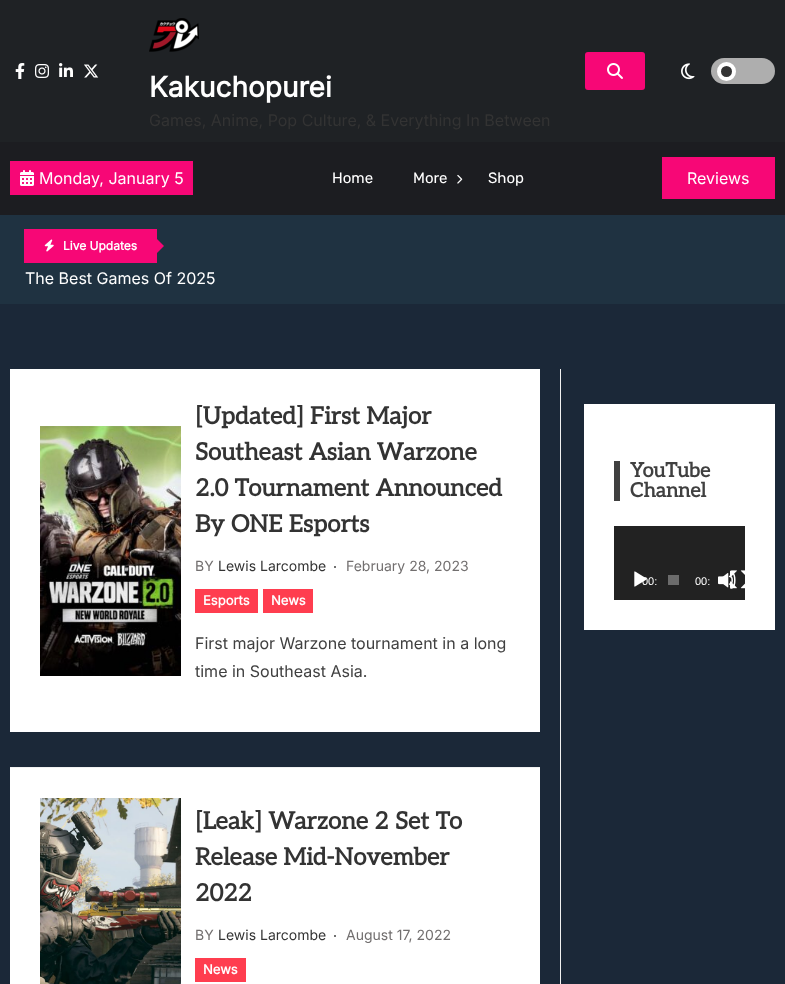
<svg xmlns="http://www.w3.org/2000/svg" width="785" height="984">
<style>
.a{font:bold 28px Inter;fill:#fff}
.b{font:16px Inter;fill:#333}
.c{font:16px Inter;fill:#fff}
.d{font:300 15px Rubik;fill:#fff}
.e{font:bold 12px Inter;fill:#fff}
.f{font:bold 24px Aleo;fill:#333}
.g{font:14px Inter;fill:#726f6f}
.h{font:14px Inter;fill:#333}
.i{font:bold 13px Inter;fill:#fff}
.j{font:16px Inter;fill:#404040}
.k{font:bold 20px Aleo;fill:#404040}
.l{font:11px Liberation Sans;fill:#fff}
</style>
<rect width="100%" height="100%" fill="#1b2838"/>
<path fill="#1f2225" d="M0 0h785v142H0z"/>
<image href="1.png" x="15" y="63" width="10" height="16"/>
<image href="2.png" x="35" y="64" width="14" height="14"/>
<image href="3.png" x="59" y="63" width="14" height="14"/>
<image href="4.png" x="84" y="64" width="15" height="14"/>
<rect fill="#f70776" x="585" y="52" width="60" height="38" rx="3"/>
<image href="5.png" x="607" y="63" width="16" height="16"/>
<image href="6.png" x="681" y="63" width="14" height="17"/>
<rect fill="#aeaeae" x="711" y="58" width="64" height="26" rx="13"/>
<circle fill="#333" stroke="#fff" stroke-width="4" cx="726.5" cy="71.5" r="7.5"/>
<image href="7.png" x="149" y="18" width="50" height="34"/>
<path fill="#1c1d21" d="M0 142h785v73H0z"/>
<path fill="#f70776" d="M10 161h183v34H10z"/>
<image href="8.png" x="20" y="170" width="14" height="16"/>
<image href="9.png" x="457" y="174" width="6" height="10"/>
<path fill="#f70776" d="M662 157h113v42H662z"/>
<path fill="#1f3241" d="M0 215h785v89H0z"/>
<path fill="#f70776" d="M24 229h133v34H24z"/>
<image href="10.png" x="44" y="239" width="10" height="13"/>
<path fill="#f70776" d="M156 254v-16l8 8z"/>
<path fill="#f1f1f1" d="M560 369h1v615H560z"/>
<path fill="#fff" d="M10 369h530v363H10z"/>
<image href="11.png" x="40" y="426" width="141" height="250"/>
<circle fill="#404040" cx="335" cy="567" r="1"/>
<path fill="#ff3d4f" d="M195 589h63v24H195z"/>
<path fill="#ff3d4f" d="M263 589h50v24H263z"/>
<path fill="#fff" d="M10 768h530v216H10z"/>
<path fill="#f1f1f1" d="M10 767h530v1H10z"/>
<image href="12.png" x="40" y="798" width="141" height="186"/>
<circle fill="#404040" cx="335" cy="936" r="1"/>
<path fill="#ff3d4f" d="M195 958h51v24H195z"/>
<path fill="#fff" d="M584 404h191v226H584z"/>
<path fill="#404040" d="M614 461h6v40H614z"/>
<path fill="#222" d="M614 526h131v74H614z"/>
<path fill="#6b6b6b" d="M668 575h11v10H668z"/>
<image href="14.png" x="718" y="571" width="18" height="18"/>
<image href="15.png" x="730" y="570" width="15" height="19"/>
<text class="a" x="149" y="97">Kakuchopurei</text>
<text class="b" x="149" y="126">Games, Anime, Pop Culture, &amp; Everything In Between</text>
<text class="c" x="39" y="184">Monday, January 5</text>
<text class="d" x="332" y="183">Home</text>
<text class="d" x="413" y="183">More</text>
<text class="d" x="488" y="183">Shop</text>
<text class="c" x="687" y="184">Reviews</text>
<text class="e" x="63" y="250">Live Updates</text>
<text class="c" x="25" y="284">The Best Games Of 2025</text>
<text class="f" x="195" y="424">[Updated] First Major</text>
<text class="f" x="195" y="460">Southeast Asian Warzone</text>
<text class="f" x="195" y="496">2.0 Tournament Announced</text>
<text class="f" x="195" y="532">By ONE Esports</text>
<text class="g" x="195" y="571">BY</text>
<text class="h" x="218" y="571">Lewis Larcombe</text>
<text class="g" x="346" y="571">February 28, 2023</text>
<text class="i" x="203" y="605">Esports</text>
<text class="i" x="271" y="605">News</text>
<text class="j" x="195" y="649">First major Warzone tournament in a long</text>
<text class="j" x="195" y="677">time in Southeast Asia.</text>
<text class="f" x="195" y="829">[Leak] Warzone 2 Set To</text>
<text class="f" x="195" y="865">Release Mid-November</text>
<text class="f" x="195" y="901">2022</text>
<text class="g" x="195" y="940">BY</text>
<text class="h" x="218" y="940">Lewis Larcombe</text>
<text class="g" x="346" y="940">August 17, 2022</text>
<text class="i" x="203" y="974">News</text>
<text class="k" x="630" y="477">YouTube</text>
<text class="k" x="630" y="497">Channel</text>
<text class="l" x="642" y="585">00:</text>
<image href="13.png" x="634" y="571" width="13" height="16"/>
<text class="l" x="695" y="585">00:</text>
</svg>
